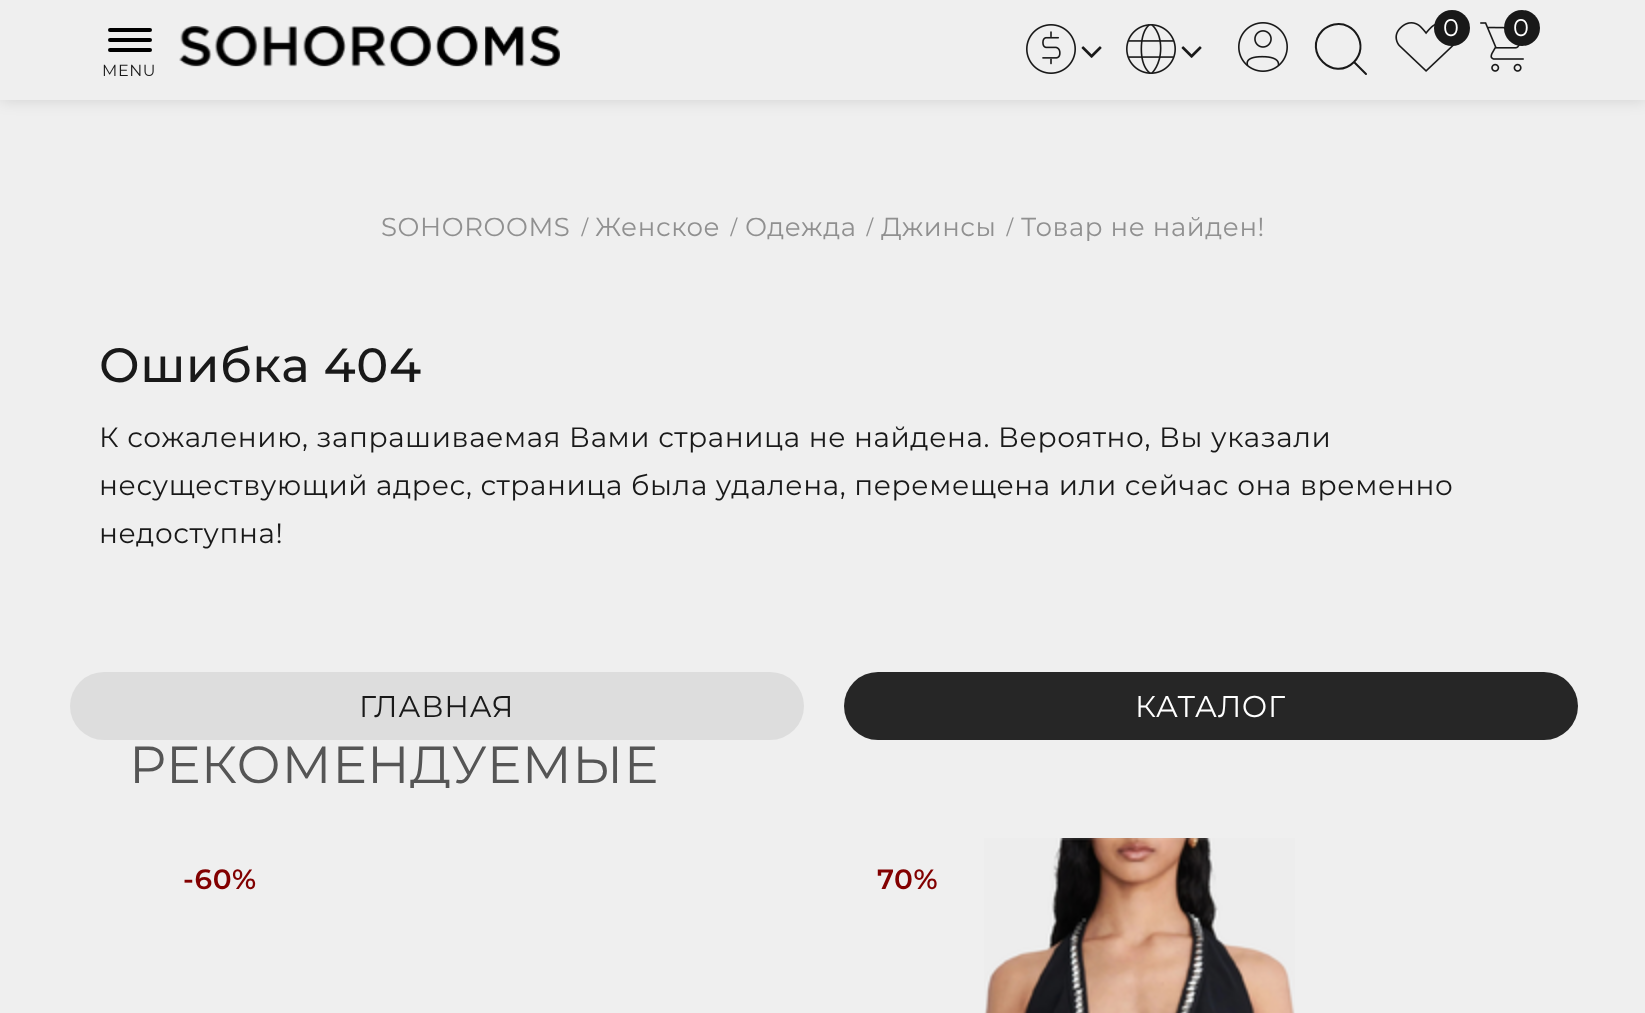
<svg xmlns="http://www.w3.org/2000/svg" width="1645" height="1013">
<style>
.a{font:24px Montserrat;letter-spacing:0.6px;fill:#fff}
.b{font:16px Montserrat;letter-spacing:0.6px;fill:#191919}
.c{font:26px Montserrat;letter-spacing:0.6px;fill:#909090}
.d{font:28px Liberation Serif;letter-spacing:0.6px;fill:#909090}
.e{font:500 48px Montserrat;letter-spacing:0.6px;fill:#191919}
.f{font:28px Montserrat;letter-spacing:0.6px;fill:#191919}
.g{font:30px Montserrat;letter-spacing:0.6px;fill:#191919}
.h{font:30px Montserrat;letter-spacing:0.6px;fill:#fff}
.i{font:52px Montserrat;letter-spacing:0.6px;fill:#555}
.j{font:600 28px Montserrat;letter-spacing:0.6px;fill:#820000}
</style>
<defs>
<clipPath id="clip1"><path d="M130 740h1388v48H130z"/></clipPath>
</defs>
<rect width="100%" height="100%" fill="#efefef"/>
<path fill="#0000001f" filter="blur(8px)" d="M0 0h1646v100H0z"/>
<path fill="#efefef" d="M0 0h1645v100H0z"/>
<image href="1.png" x="179" y="26" width="381" height="41"/>
<image href="2.png" x="1026" y="24" width="50" height="50"/>
<image href="3.png" x="1081" y="46" width="21" height="12"/>
<image href="4.png" x="1126" y="24" width="50" height="50"/>
<image href="3.png" x="1181" y="46" width="21" height="12"/>
<image href="5.png" x="1238" y="22" width="50" height="50"/>
<path fill="none" stroke="#191919" stroke-width="2" stroke-linecap="round" stroke-linejoin="round" d="M1366 74l-12-12m0 0c15.5-15.5 1-42-20-37.5c-4.5 1-8.5 3-11.5 6c-20.5 21.5 11 52 31.5 31.5z"/>
<image href="6.png" x="1395" y="22" width="60" height="50"/>
<circle fill="#191919" cx="1452" cy="28" r="18"/>
<image href="7.png" x="1480" y="22" width="44" height="50"/>
<circle fill="#191919" cx="1522" cy="28" r="18"/>
<path fill="none" stroke="#000" stroke-width="4" stroke-linecap="round" stroke-linejoin="round" d="M110 30h40zm0 10h40zm0 10h40z"/>
<rect fill="#ddd" x="70" y="672" width="734" height="68" rx="34"/>
<rect fill="#262626" x="844" y="672" width="734" height="68" rx="34"/>
<image href="8.png" x="984" y="838" width="311" height="175"/>
<text class="a" x="1443" y="36">0</text>
<text class="a" x="1513" y="36">0</text>
<text class="b" x="102" y="76">MENU</text>
<text class="c" x="381" y="236">SOHOROOMS</text>
<text class="d" x="581" y="236">/</text>
<text class="c" x="595" y="236">Женское</text>
<text class="d" x="730" y="236">/</text>
<text class="c" x="745" y="236">Одежда</text>
<text class="d" x="866" y="236">/</text>
<text class="c" x="881" y="236">Джинсы</text>
<text class="d" x="1006" y="236">/</text>
<text class="c" x="1021" y="236">Товар не найден!</text>
<text class="e" x="99" y="382">Ошибка 404</text>
<text class="f" x="99" y="447">К сожалению, запрашиваемая Вами страница не найдена. Вероятно, Вы указали</text>
<text class="f" x="99" y="495">несуществующий адрес, страница была удалена, перемещена или сейчас она временно</text>
<text class="f" x="99" y="543">недоступна!</text>
<text class="g" x="359" y="717">ГЛАВНАЯ</text>
<text class="h" x="1135" y="717">КАТАЛОГ</text>
<g clip-path="url(#clip1)">
<text class="i" x="129" y="783">РЕКОМЕНДУЕМЫЕ</text>
</g>
<text class="j" x="183" y="889">-60%</text>
<text class="j" x="877" y="889">70%</text>
</svg>
